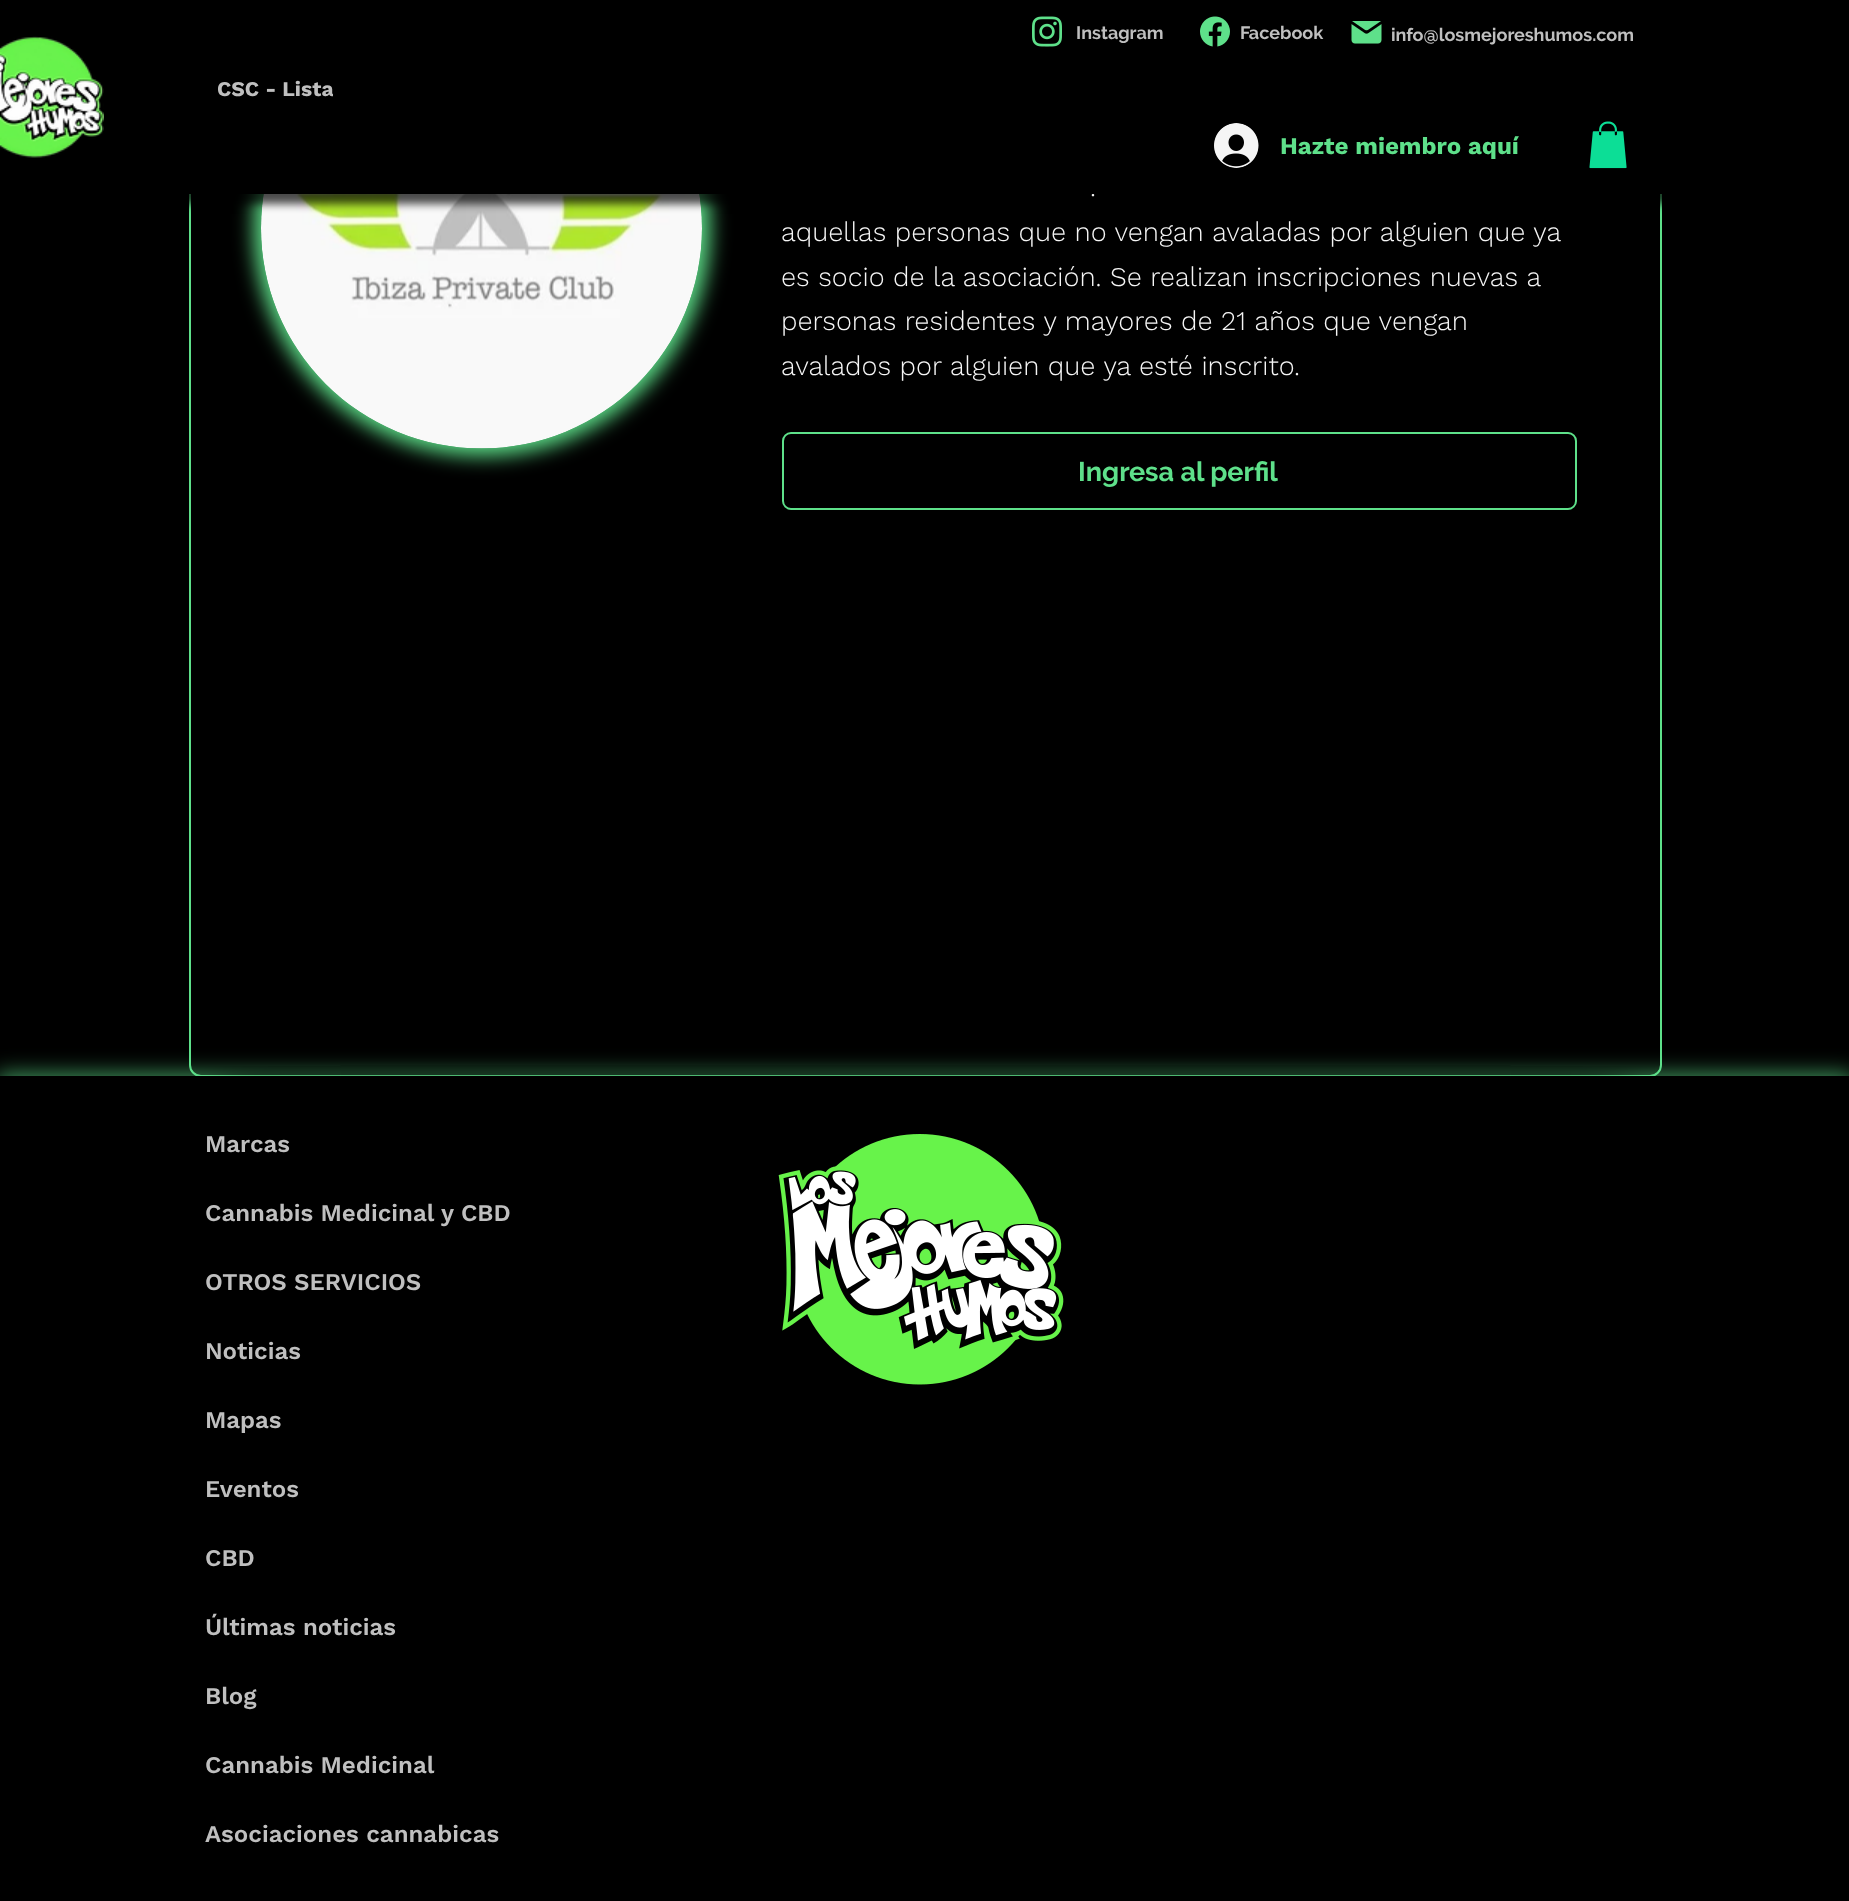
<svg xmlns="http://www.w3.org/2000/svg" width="1849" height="1901">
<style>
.a{font:300 27px Work Sans;fill:#f5f5f5}
.b{font:bold 24px Work Sans;fill:#5ee08a}
.c{font:bold 21px Work Sans;fill:#bfbfbf}
.d{font:bold 18px Raleway;fill:#bfbfbf}
.e{font:bold 27px Raleway;fill:#5ee08a}
.f{font:600 24px Work Sans;fill:#bfbfbf}
</style>
<defs>
<clipPath id="clip1"><path d="M218 77h115v24H218z"/></clipPath>
</defs>
<rect width="100%" height="100%" fill="#000"/>
<rect fill="none" stroke="#5ee08a" stroke-width="2" x="190" y="-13" width="1471" height="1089" rx="11"/>
<rect fill="#5ee08a" filter="blur(10px)" x="254" width="456" height="456" rx="228"/>
<image href="7.png" x="261" y="194" width="441" height="255"/>
<path fill="#000000b3" filter="blur(4px)" d="M-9 -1h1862v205H-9z"/>
<image href="1.png" x="0" y="36" width="104" height="122"/>
<rect fill="none" stroke="#5ee08a" stroke-width="2" x="783" y="433" width="793" height="76" rx="8"/>
<path fill="#5ee08ab3" filter="blur(11px)" d="M-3 1074h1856v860H-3z"/>
<path fill="#000" d="M0 1076h1849v825H0z"/>
<image href="8.png" x="196" y="1066" width="145" height="10"/>
<image href="9.png" x="340" y="1065" width="1171" height="11"/>
<image href="10.png" x="1510" y="1066" width="145" height="10"/>
<image href="11.png" x="778" y="1134" width="286" height="251"/>
<text class="a" x="1090" y="196">.</text>
<path fill="#000" d="M189 0h1473v194H189z"/>
<image href="6.png" x="1589" y="121" width="38" height="48"/>
<image href="5.png" x="1214" y="123" width="45" height="45"/>
<text class="b" x="1280" y="154">Hazte miembro aquí</text>
<g clip-path="url(#clip1)">
<text class="c" x="217" y="96">CSC - Lista</text>
</g>
<text class="d" x="1391" y="41">info@losmejoreshumos.com</text>
<image href="4.png" x="1351" y="21" width="31" height="23"/>
<text class="d" x="1240" y="39">Facebook</text>
<image href="3.png" x="1200" y="16" width="30" height="31"/>
<text class="d" x="1076" y="39">Instagram</text>
<image href="2.png" x="1032" y="16" width="30" height="31"/>
<text class="a" x="781" y="241">aquellas personas que no vengan avaladas por alguien que ya</text>
<text class="a" x="781" y="286">es socio de la asociación. Se realizan inscripciones nuevas a</text>
<text class="a" x="781" y="330">personas residentes y mayores de 21 años que vengan</text>
<text class="a" x="781" y="375">avalados por alguien que ya esté inscrito.</text>
<text class="e" x="1078" y="481">Ingresa al perfil</text>
<text class="f" x="205" y="1152">Marcas</text>
<text class="f" x="205" y="1221">Cannabis Medicinal y CBD</text>
<text class="f" x="205" y="1290">OTROS SERVICIOS</text>
<text class="f" x="205" y="1359">Noticias</text>
<text class="f" x="205" y="1428">Mapas</text>
<text class="f" x="205" y="1497">Eventos</text>
<text class="f" x="205" y="1566">CBD</text>
<text class="f" x="205" y="1635">Últimas noticias</text>
<text class="f" x="205" y="1704">Blog</text>
<text class="f" x="205" y="1773">Cannabis Medicinal</text>
<text class="f" x="205" y="1842">Asociaciones cannabicas</text>
</svg>
